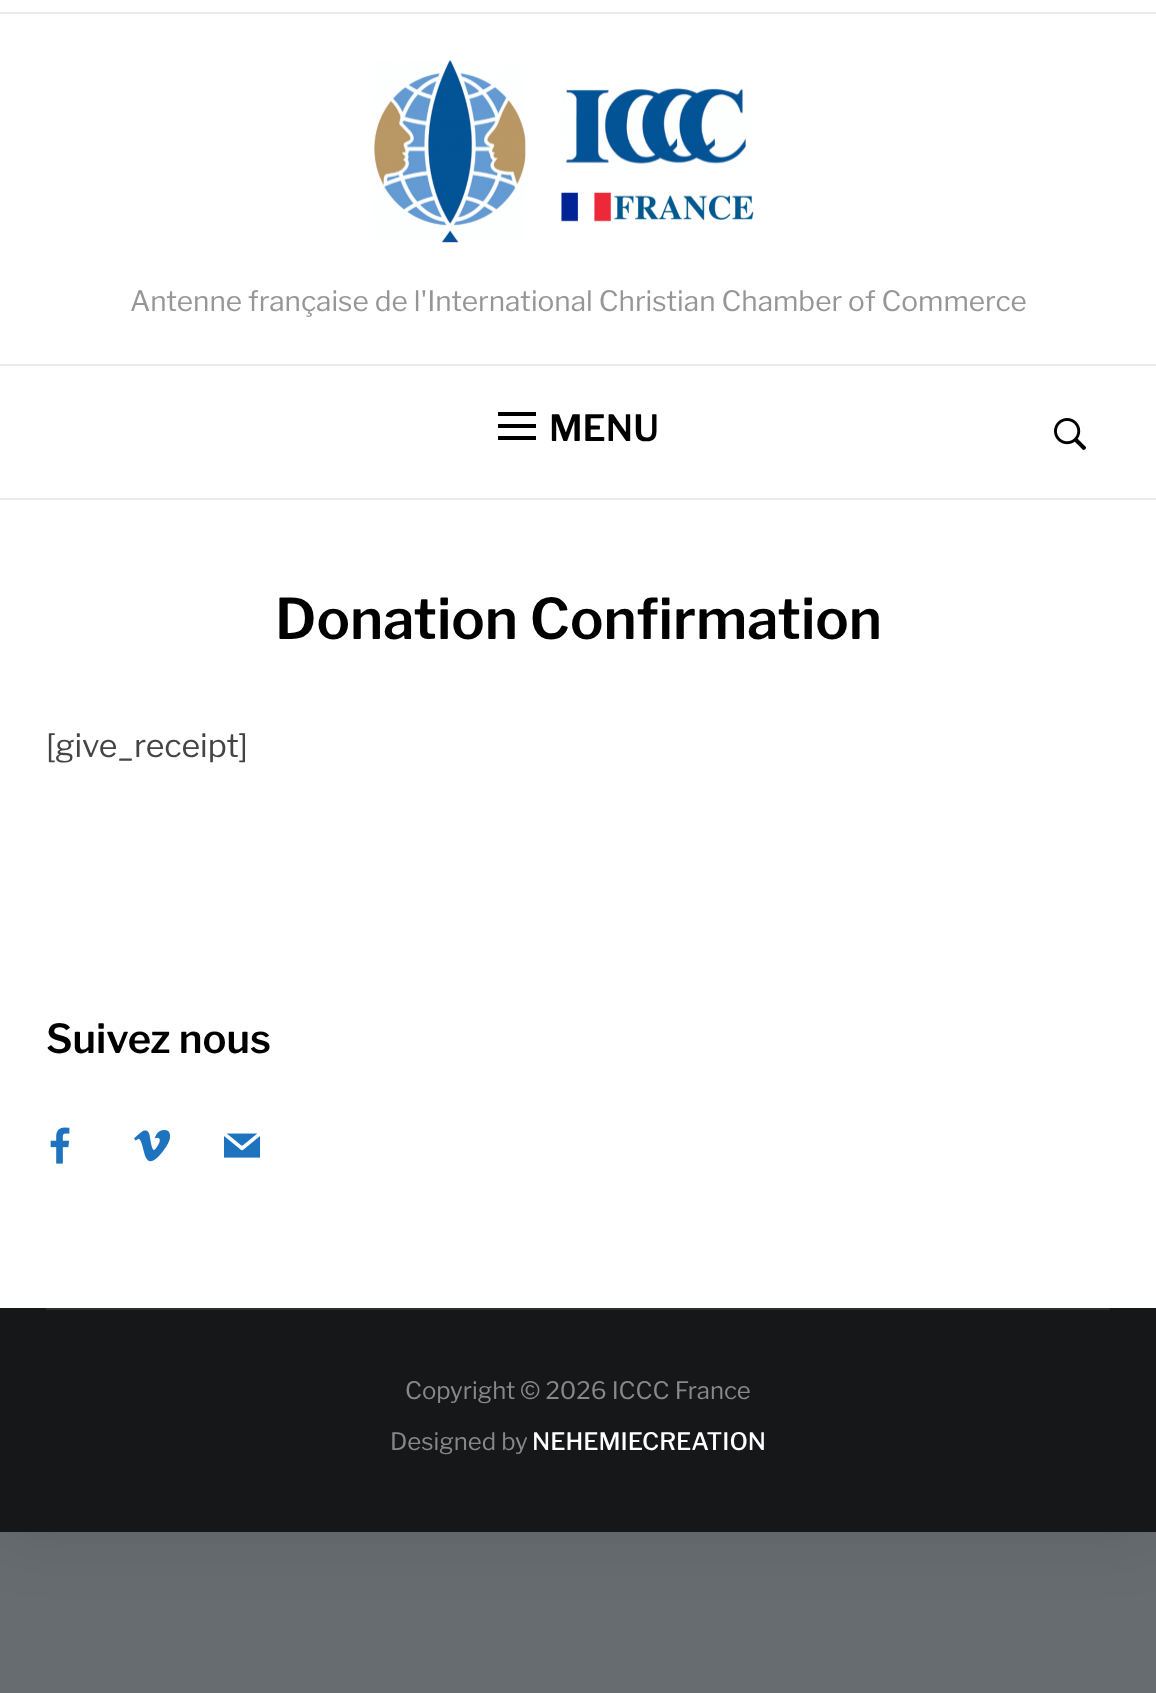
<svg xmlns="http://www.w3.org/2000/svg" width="1156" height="1693">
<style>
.a{font:28px Libre Franklin;fill:#969696}
.b{font:600 36px Libre Franklin;fill:#000}
.c{font:600 56px Libre Franklin;fill:#000}
.d{font:32px Libre Franklin;fill:#444}
.e{font:600 40px Libre Franklin;fill:#000}
.f{font:24px Libre Franklin;fill:#87888a}
.g{font:500 24px Libre Franklin;fill:#fff}
</style>
<rect width="100%" height="100%" fill="#676c71"/>
<path fill="#0000001a" filter="blur(35px)" d="M0 0h1156v1532H0z"/>
<path fill="#fff" d="M0 0h1156v1308H0z"/>
<path fill="#ebebeb" d="M0 12h1156v2H0z"/>
<image href="1.png" x="374" y="60" width="380" height="183"/>
<path fill="#ebebeb" d="M0 364h1156v2H0z"/>
<path fill="#ebebeb" d="M0 498h1156v2H0z"/>
<path fill="#000" d="M498 412h38v4H498z"/>
<path fill="#000" d="M498 424h38v4H498z"/>
<path fill="#000" d="M498 436h38v4H498z"/>
<image href="2.png" x="1054" y="418" width="32" height="32"/>
<image href="3.png" x="50" y="1127" width="20" height="37"/>
<image href="4.png" x="134" y="1130" width="37" height="32"/>
<image href="5.png" x="224" y="1133" width="37" height="25"/>
<path fill="#161719" d="M0 1308h1156v224H0z"/>
<path fill="#2d2e30" d="M46 1308h1064v2H46z"/>
<text class="a" x="130" y="311">Antenne française de l'International Christian Chamber of Commerce</text>
<text class="b" x="549" y="441">MENU</text>
<text class="c" x="275" y="639">Donation Confirmation</text>
<text class="d" x="46" y="757">[give_receipt]</text>
<text class="e" x="46" y="1053">Suivez nous</text>
<text class="f" x="405" y="1399">Copyright © 2026 ICCC France</text>
<text class="f" x="390" y="1450">Designed by</text>
<text class="g" x="532" y="1450">NEHEMIECREATION</text>
</svg>
